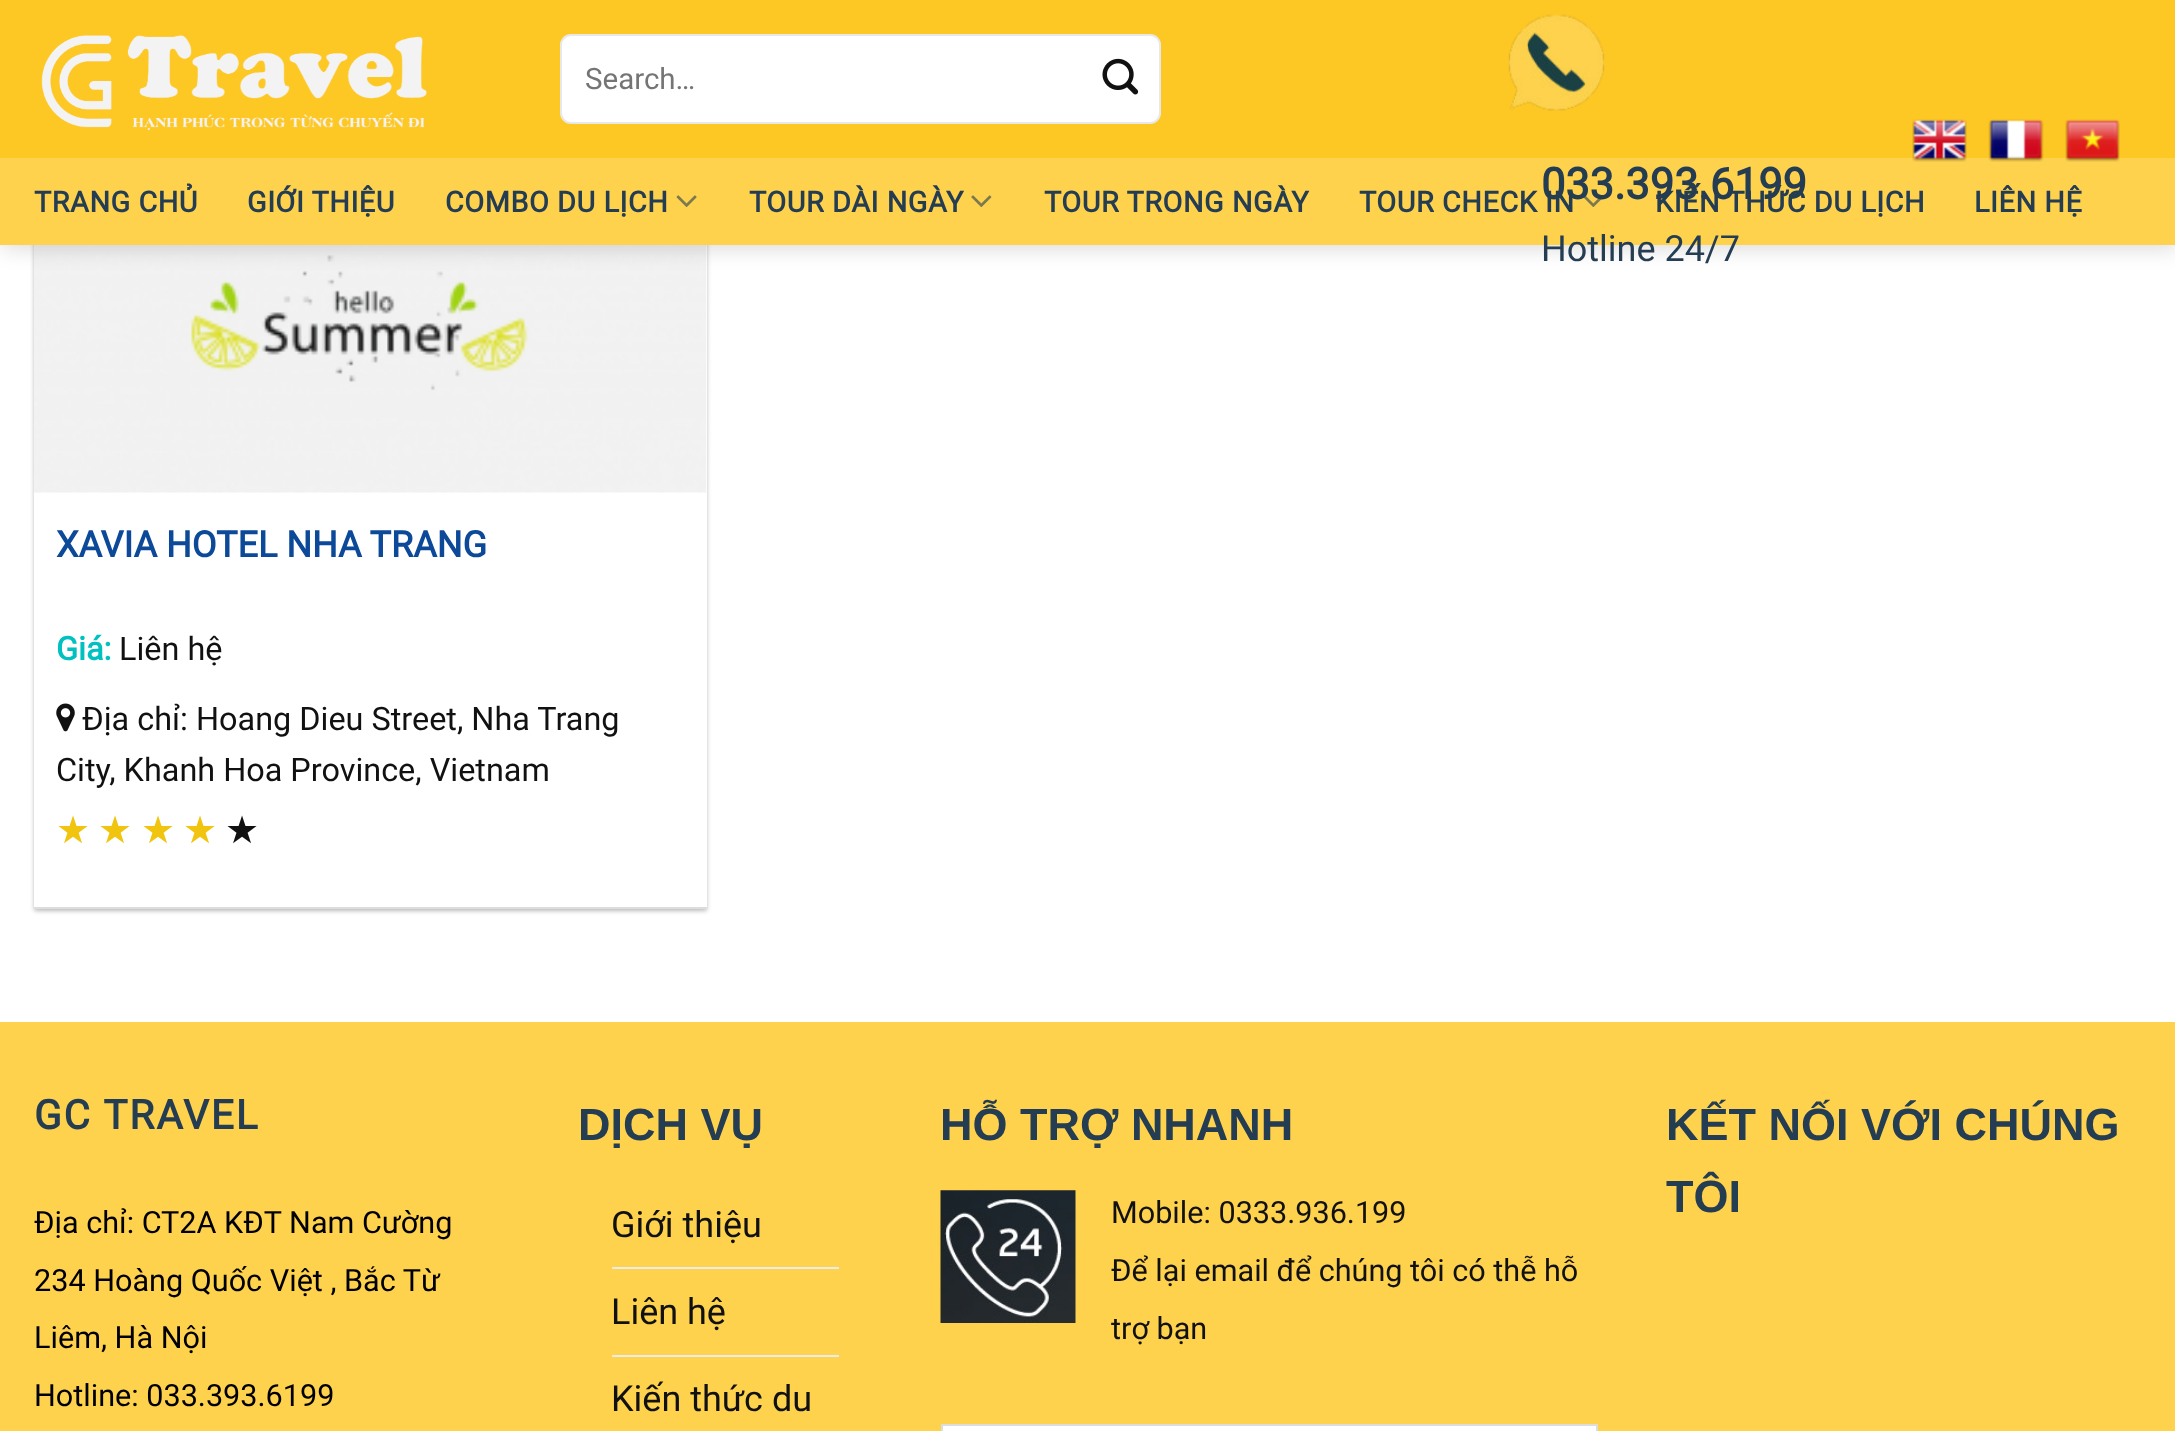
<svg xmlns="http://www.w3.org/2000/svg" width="2175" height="1431">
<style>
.a{font:29.5px Roboto;fill:#757575}
.b{font:36px Roboto;fill:#253d52}
.c{font:bold 28.75px Roboto;letter-spacing:0.6px;fill:#253d52}
.d{font:bold 43.25px Roboto;fill:#253d52}
.e{font:bold 36px Roboto;fill:#0c4999}
.f{font:bold 32.4px Roboto;fill:#00c0c0}
.g{font:32.4px Roboto;fill:#111}
.h{font:38px DejaVu Sans;fill:#f1c40f}
.i{font:38px DejaVu Sans;fill:#111}
.j{font:bold 40.5px Roboto;letter-spacing:2px;fill:#253d52}
.k{font:30.6px Roboto;fill:#000}
.l{font:bold 45px Liberation Sans;fill:#253d52}
.m{font:36px Roboto;fill:#111}
.n{font:30.6px Roboto;fill:#111}
</style>
<rect width="100%" height="100%" fill="#fff"/>
<path fill="#0000003d" filter="blur(2px)" d="M34 -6h673v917H34z"/>
<path fill="#0000001f" filter="blur(3.5px)" d="M38 -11h664v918H38z"/>
<path fill="#fff" d="M34 245h673v662H34z"/>
<image href="9.png" x="33" y="245" width="674" height="248"/>
<path fill="#00000026" filter="blur(11px)" d="M2 2h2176v246H2z"/>
<path fill="#fdc724" d="M0 0h2175v158H0z"/>
<image href="1.png" x="41" y="35" width="387" height="96"/>
<rect fill="#fff" x="560" y="34" width="601" height="90" rx="11"/>
<rect fill="none" stroke="#00000017" stroke-width="2" x="561" y="35" width="599" height="88" rx="10"/>
<image href="2.png" x="1102" y="58" width="37" height="37"/>
<path fill="#fed24d" d="M0 158h2175v87H0z"/>
<image href="3.png" x="1912" y="119" width="55" height="43"/>
<image href="4.png" x="1988" y="119" width="56" height="43"/>
<image href="5.png" x="2065" y="119" width="55" height="43"/>
<image href="6.png" x="1508" y="14" width="97" height="97"/>
<image href="7.png" x="676" y="195" width="21" height="12"/>
<image href="8.png" x="971" y="195" width="21" height="12"/>
<image href="8.png" x="1583" y="195" width="21" height="12"/>
<path fill="#ddd" d="M34 907h673v2H34z"/>
<image href="10.png" x="56" y="703" width="19" height="29"/>
<path fill="#fed24d" d="M0 1022h2175v409H0z"/>
<path fill="#ececec" d="M612 1267h227v2H612z"/>
<path fill="#ececec" d="M612 1355h227v2H612z"/>
<image href="11.png" x="940" y="1190" width="136" height="133"/>
<path fill="#fff" stroke="#ddd" stroke-width="2" d="M942 1425h655v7H942z"/>
<text class="a" x="585" y="89">Search…</text>
<text class="b" x="1541" y="261">Hotline 24/7</text>
<text class="c" x="34" y="212">TRANG CHỦ</text>
<text class="c" x="247" y="212">GIỚI THIỆU</text>
<text class="c" x="445" y="212">COMBO DU LỊCH</text>
<text class="c" x="749" y="212">TOUR DÀI NGÀY</text>
<text class="c" x="1044" y="212">TOUR TRONG NGÀY</text>
<text class="c" x="1359" y="212">TOUR CHECK IN</text>
<text class="c" x="1655" y="212">KIẾN THỨC DU LỊCH</text>
<text class="d" x="1541" y="199">033.393.6199</text>
<text class="c" x="1974" y="212">LIÊN HỆ</text>
<text class="e" x="56" y="557">XAVIA HOTEL NHA TRANG</text>
<text class="f" x="56" y="660">Giá:</text>
<text class="g" x="119" y="660">Liên hệ</text>
<text class="g" x="82" y="730">Địa chỉ: Hoang Dieu Street, Nha Trang</text>
<text class="g" x="56" y="781">City, Khanh Hoa Province, Vietnam</text>
<text class="h" x="56" y="843">★</text>
<text class="h" x="98" y="843">★</text>
<text class="h" x="141" y="843">★</text>
<text class="h" x="183" y="843">★</text>
<text class="i" x="225" y="843">★</text>
<text class="j" x="34" y="1129">GC TRAVEL</text>
<text class="k" x="34" y="1233">Địa chỉ: CT2A KĐT Nam Cường</text>
<text class="k" x="34" y="1291">234 Hoàng Quốc Việt , Bắc Từ</text>
<text class="k" x="34" y="1348">Liêm, Hà Nội</text>
<text class="k" x="34" y="1406">Hotline: 033.393.6199</text>
<text class="l" x="578" y="1140">DỊCH VỤ</text>
<text class="m" x="611" y="1237">Giới thiệu</text>
<text class="m" x="611" y="1324">Liên hệ</text>
<text class="m" x="611" y="1411">Kiến thức du</text>
<text class="l" x="940" y="1140">HỖ TRỢ NHANH</text>
<text class="n" x="1111" y="1223">Mobile: 0333.936.199</text>
<text class="n" x="1111" y="1281">Để lại email để chúng tôi có thễ hỗ</text>
<text class="n" x="1111" y="1339">trợ bạn</text>
<text class="l" x="1666" y="1140">KẾT NỐI VỚI CHÚNG</text>
<text class="l" x="1666" y="1212">TÔI</text>
</svg>
